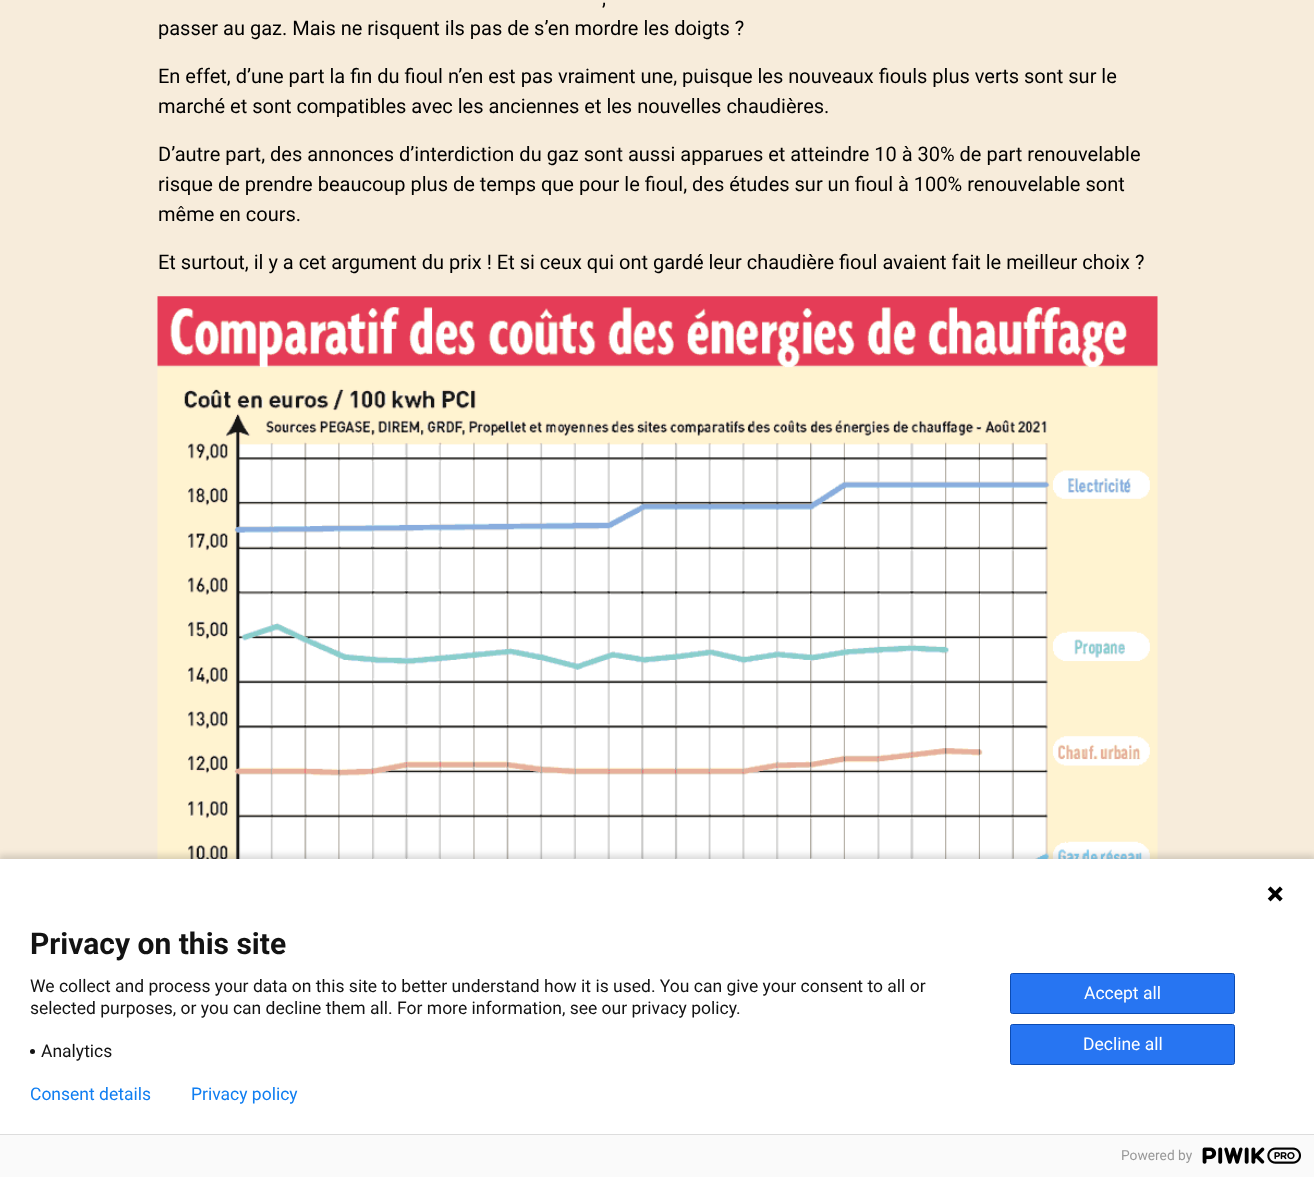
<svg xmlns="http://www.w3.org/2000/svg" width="1314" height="1177">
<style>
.a{font:20px Roboto;fill:#000}
.b{font:bold 30px Roboto;fill:#131313}
.c{font:17.5px Roboto;fill:#131313}
.d{font:17.5px Roboto;fill:#fff}
.e{font:17.5px Roboto;fill:#107ef1}
.f{font:13.75px Roboto;fill:#999}
</style>
<rect width="100%" height="100%" fill="#f7ecdb"/>
<image href="1.png" x="157" y="296" width="1001" height="563"/>
<path fill="#00000024" filter="blur(3px)" d="M-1 855h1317v321H-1z"/>
<path fill="#fff" d="M0 859h1314v275H0z"/>
<image href="2.png" x="1267" y="886" width="16" height="16"/>
<circle fill="#131313" cx="32.5" cy="1051.5" r="2.5"/>
<rect fill="#2775f2" stroke="#0b4bb3" x="1010.5" y="973.5" width="224" height="40" rx="2"/>
<rect fill="#2775f2" stroke="#0b4bb3" x="1010.5" y="1024.5" width="224" height="40" rx="2"/>
<path fill="#fafafa" d="M0 1135h1314v42H0z"/>
<path fill="#ddd" d="M0 1134h1314v1H0z"/>
<image href="3.png" x="1202" y="1147" width="99" height="17"/>
<text class="a" x="602" y="5">,</text>
<text class="a" x="158" y="35">passer au gaz. Mais ne risquent ils pas de s’en mordre les doigts ?</text>
<text class="a" x="158" y="83">En effet, d’une part la fin du fioul n’en est pas vraiment une, puisque les nouveaux fiouls plus verts sont sur le</text>
<text class="a" x="158" y="113">marché et sont compatibles avec les anciennes et les nouvelles chaudières.</text>
<text class="a" x="158" y="161">D’autre part, des annonces d’interdiction du gaz sont aussi apparues et atteindre 10 à 30% de part renouvelable</text>
<text class="a" x="158" y="191">risque de prendre beaucoup plus de temps que pour le fioul, des études sur un fioul à 100% renouvelable sont</text>
<text class="a" x="158" y="221">même en cours.</text>
<text class="a" x="158" y="269">Et surtout, il y a cet argument du prix ! Et si ceux qui ont gardé leur chaudière fioul avaient fait le meilleur choix ?</text>
<text class="b" x="30" y="954">Privacy on this site</text>
<text class="c" x="30" y="992">We collect and process your data on this site to better understand how it is used. You can give your consent to all or</text>
<text class="c" x="30" y="1014">selected purposes, or you can decline them all. For more information, see our privacy policy.</text>
<text class="c" x="41" y="1057">Analytics</text>
<text class="d" x="1084" y="999">Accept all</text>
<text class="d" x="1083" y="1050">Decline all</text>
<text class="e" x="30" y="1100">Consent details</text>
<text class="e" x="191" y="1100">Privacy policy</text>
<text class="f" x="1121" y="1160">Powered by</text>
</svg>
